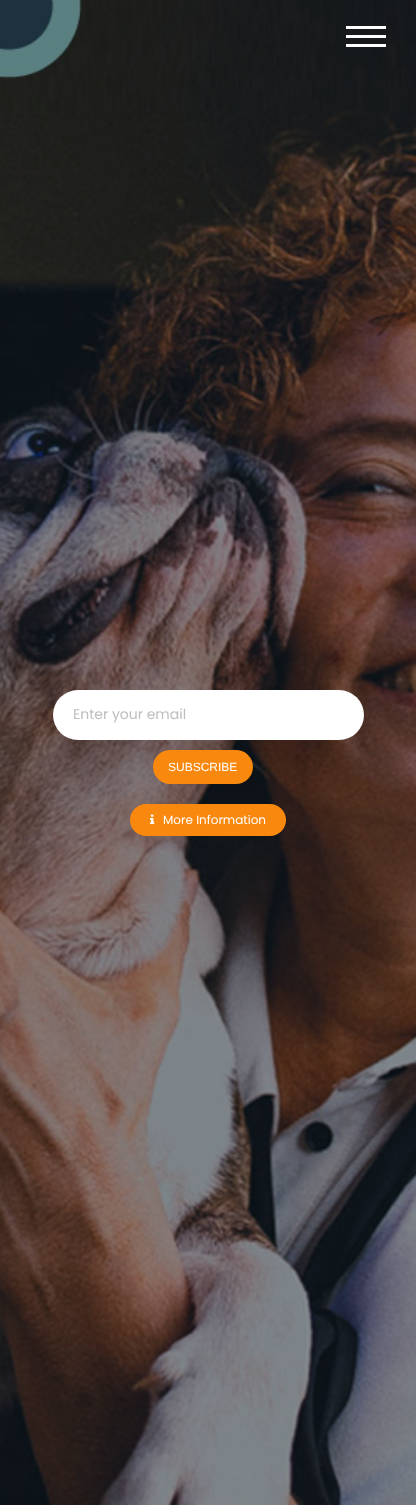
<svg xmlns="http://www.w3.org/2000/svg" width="416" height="1505">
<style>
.a{font:14px Poppins;fill:#bebebe}
.b{font:12px Liberation Sans;fill:#fff}
.c{font:12px Poppins;fill:#fff}
</style>
<rect width="100%" height="100%" fill="#fff"/>
<image href="1.png" x="0" y="0" width="416" height="1505"/>
<path fill="#fff" d="M346 26h40v3H346z"/>
<path fill="#fff" d="M346 35h40v3H346z"/>
<path fill="#fff" d="M346 44h40v3H346z"/>
<rect fill="#fff" x="53" y="690" width="311" height="50" rx="25"/>
<rect fill="#f9880f" x="153" y="750" width="100" height="34" rx="17"/>
<rect fill="#f9880f" x="130" y="804" width="156" height="32" rx="16"/>
<image href="2.png" x="150" y="814" width="5" height="10"/>
<text class="a" x="73" y="719">Enter your email</text>
<text class="b" x="168" y="771">SUBSCRIBE</text>
<text class="c" x="163" y="824">More Information</text>
</svg>
